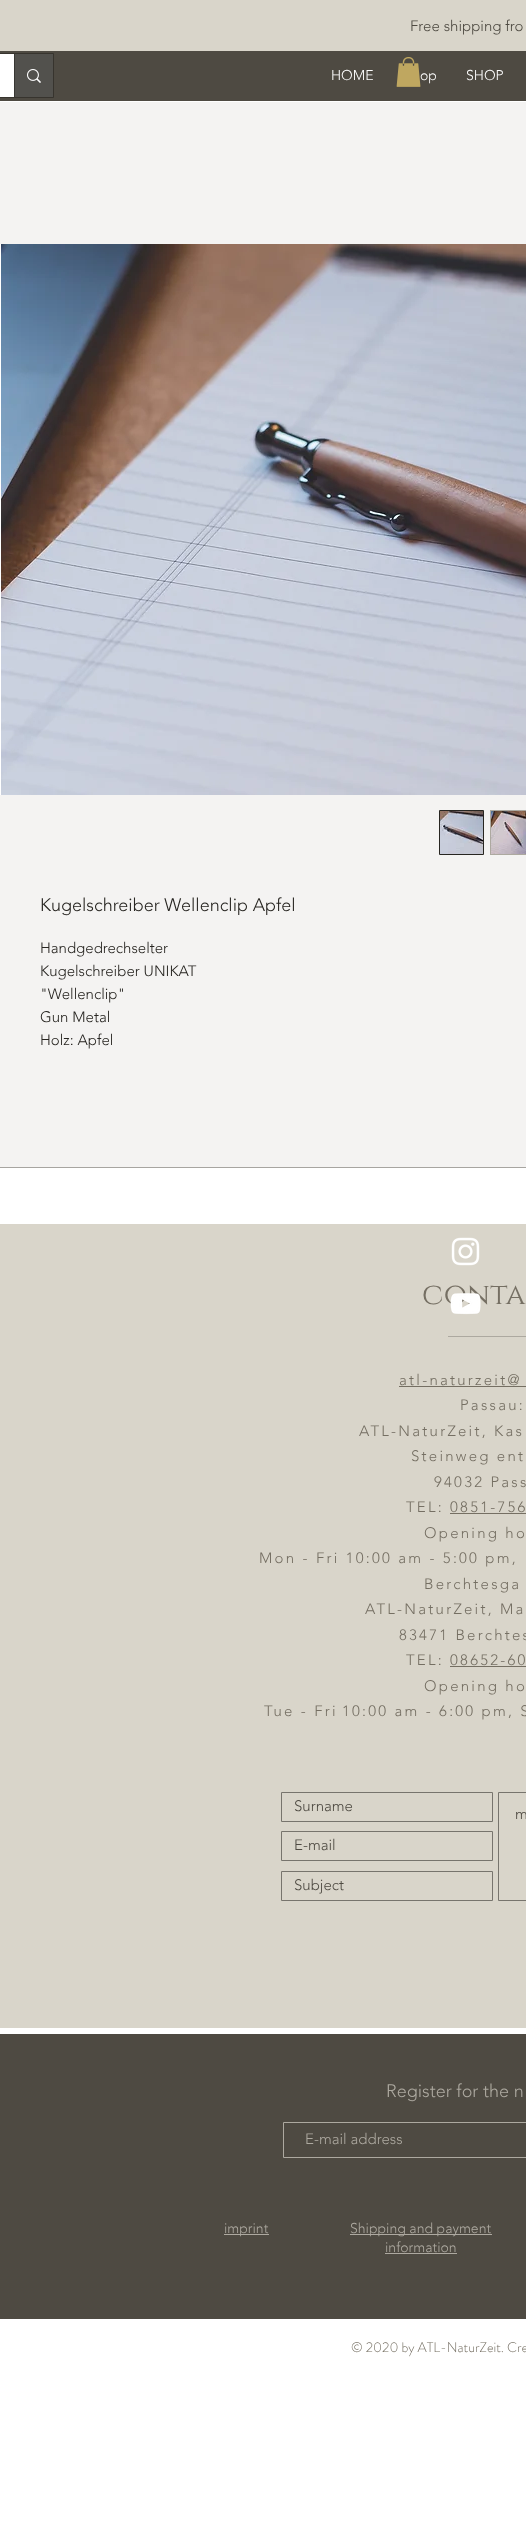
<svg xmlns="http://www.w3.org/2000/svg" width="526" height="2530">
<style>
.a{font:300 15px 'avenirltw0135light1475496';fill:#4e4a42}
.b{font:300 14px 'avenirltw0135light1475496';fill:#fff}
.c{font:300 18px 'avenirltw0135light1475496';fill:#272521}
.d{font:300 15px 'avenirltw0135light1475496';fill:#272521}
.e{font:30px Cinzel;fill:#756f63}
.f{font:300 15px 'avenirltw0135light1475496';letter-spacing:2.25px;fill:#756f63}
.g{font:300 18px 'avenirltw0135light1475496';fill:#ada9a0}
.h{font:300 15px 'avenirltw0135light1475496';fill:#ada9a0}
.i{font:300 14px 'avenirltw0135light1475496';fill:#ada9a0}
.j{font:300 14px 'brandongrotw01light';fill:#756f63}
</style>
<rect width="100%" height="100%" fill="#fff"/>
<path fill="#d9d5ca" d="M0 0h526v51H0z"/>
<path fill="#4e4a42" d="M0 51h526v50H0z"/>
<path fill="none" stroke="#37342e" d="M-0.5 53.5h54v44H-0.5z"/>
<path fill="#fff" d="M0 54h14v43H0z"/>
<path fill="#52514d" d="M15 54h38v43H15z"/>
<path fill="#383733" d="M14 54h1v43H14z"/>
<image href="1.png" x="27" y="69" width="14" height="14"/>
<path fill="#f4f3f2" d="M0 102h526v1065H0z"/>
<path fill="#fff" d="M0 244h1v551H0z"/>
<image href="3.png" x="1" y="244" width="525" height="551"/>
<path fill="none" stroke="#272521" d="M439.5 810.5h44v44H439.5z"/>
<image href="4.png" x="440" y="811" width="43" height="43"/>
<path fill="#ada9a0" d="M490 810h36v45H490z"/>
<image href="5.png" x="491" y="811" width="35" height="43"/>
<path fill="#d9d5ca" d="M0 1224h526v804H0z"/>
<image href="6.png" x="451" y="1237" width="29" height="29"/>
<path fill="#a7a5a1" d="M0 1167h526v1H0z"/>
<path fill="#ada9a0" d="M448 1336h78v1H448z"/>
<path fill="#756f63" d="M399 1386h127v1H399z"/>
<path fill="#756f63" d="M450 1513h76v1H450z"/>
<path fill="#756f63" d="M450 1666h76v1H450z"/>
<path fill="none" stroke="#77746d" d="M281.5 1792.5h211v29H281.5z"/>
<path fill="none" stroke="#77746d" d="M498.5 1792.5h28v108H498.5z"/>
<path fill="none" stroke="#77746d" d="M281.5 1831.5h211v29H281.5z"/>
<path fill="none" stroke="#77746d" d="M281.5 1871.5h211v29H281.5z"/>
<path fill="#4e4a42" d="M0 2034h526v285H0z"/>
<path fill="none" stroke="#ada9a0" d="M283.5 2122.5h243v35H283.5z"/>
<path fill="#ada9a0" d="M224 2234h45v1H224z"/>
<path fill="#ada9a0" d="M350 2234h142v1H350z"/>
<path fill="#ada9a0" d="M385 2253h72v1H385z"/>
<text class="a" x="410" y="31">Free shipping fro</text>
<text class="b" x="331" y="80">HOME</text>
<text class="b" x="420" y="80">op</text>
<text class="b" x="466" y="80">SHOP</text>
<image href="2.png" x="396" y="57" width="25" height="30"/>
<text class="c" x="40" y="911">Kugelschreiber Wellenclip Apfel</text>
<text class="d" x="40" y="953">Handgedrechselter</text>
<text class="d" x="40" y="976">Kugelschreiber UNIKAT</text>
<text class="d" x="40" y="999">"Wellenclip"</text>
<text class="d" x="40" y="1022">Gun Metal</text>
<text class="d" x="40" y="1045">Holz: Apfel</text>
<text class="e" x="422" y="1304">conta</text>
<image href="7.png" x="450" y="1293" width="31" height="22"/>
<text class="f" x="399" y="1385">atl-naturzeit@</text>
<text class="f" x="460" y="1410">Passau:</text>
<text class="f" x="359" y="1436">ATL-NaturZeit, Kas</text>
<text class="f" x="411" y="1461">Steinweg ent</text>
<text class="f" x="434" y="1487">94032 Pass</text>
<text class="f" x="406" y="1512">TEL: 0851-756</text>
<text class="f" x="424" y="1538">Opening ho</text>
<text class="f" x="259" y="1563">Mon - Fri 10:00 am - 5:00 pm,</text>
<text class="f" x="424" y="1589">Berchtesga</text>
<text class="f" x="365" y="1614">ATL-NaturZeit, Ma</text>
<text class="f" x="399" y="1640">83471 Berchtes</text>
<text class="f" x="406" y="1665">TEL: 08652-60</text>
<text class="f" x="424" y="1691">Opening ho</text>
<text class="f" x="264" y="1716">Tue - Fri</text>
<text class="f" x="342" y="1716">10:00 am - 6:00 pm, S</text>
<text class="a" x="294" y="1811">Surname</text>
<text class="a" x="515" y="1819">m</text>
<text class="a" x="294" y="1850">E-mail</text>
<text class="a" x="294" y="1890">Subject</text>
<text class="g" x="386" y="2097">Register for the n</text>
<text class="h" x="305" y="2144">E-mail address</text>
<text class="i" x="224" y="2233">imprint</text>
<text class="i" x="350" y="2233">Shipping and payment</text>
<text class="i" x="385" y="2252">information</text>
<text class="j" x="351" y="2352">© 2020 by ATL-NaturZeit. Cre</text>
</svg>
